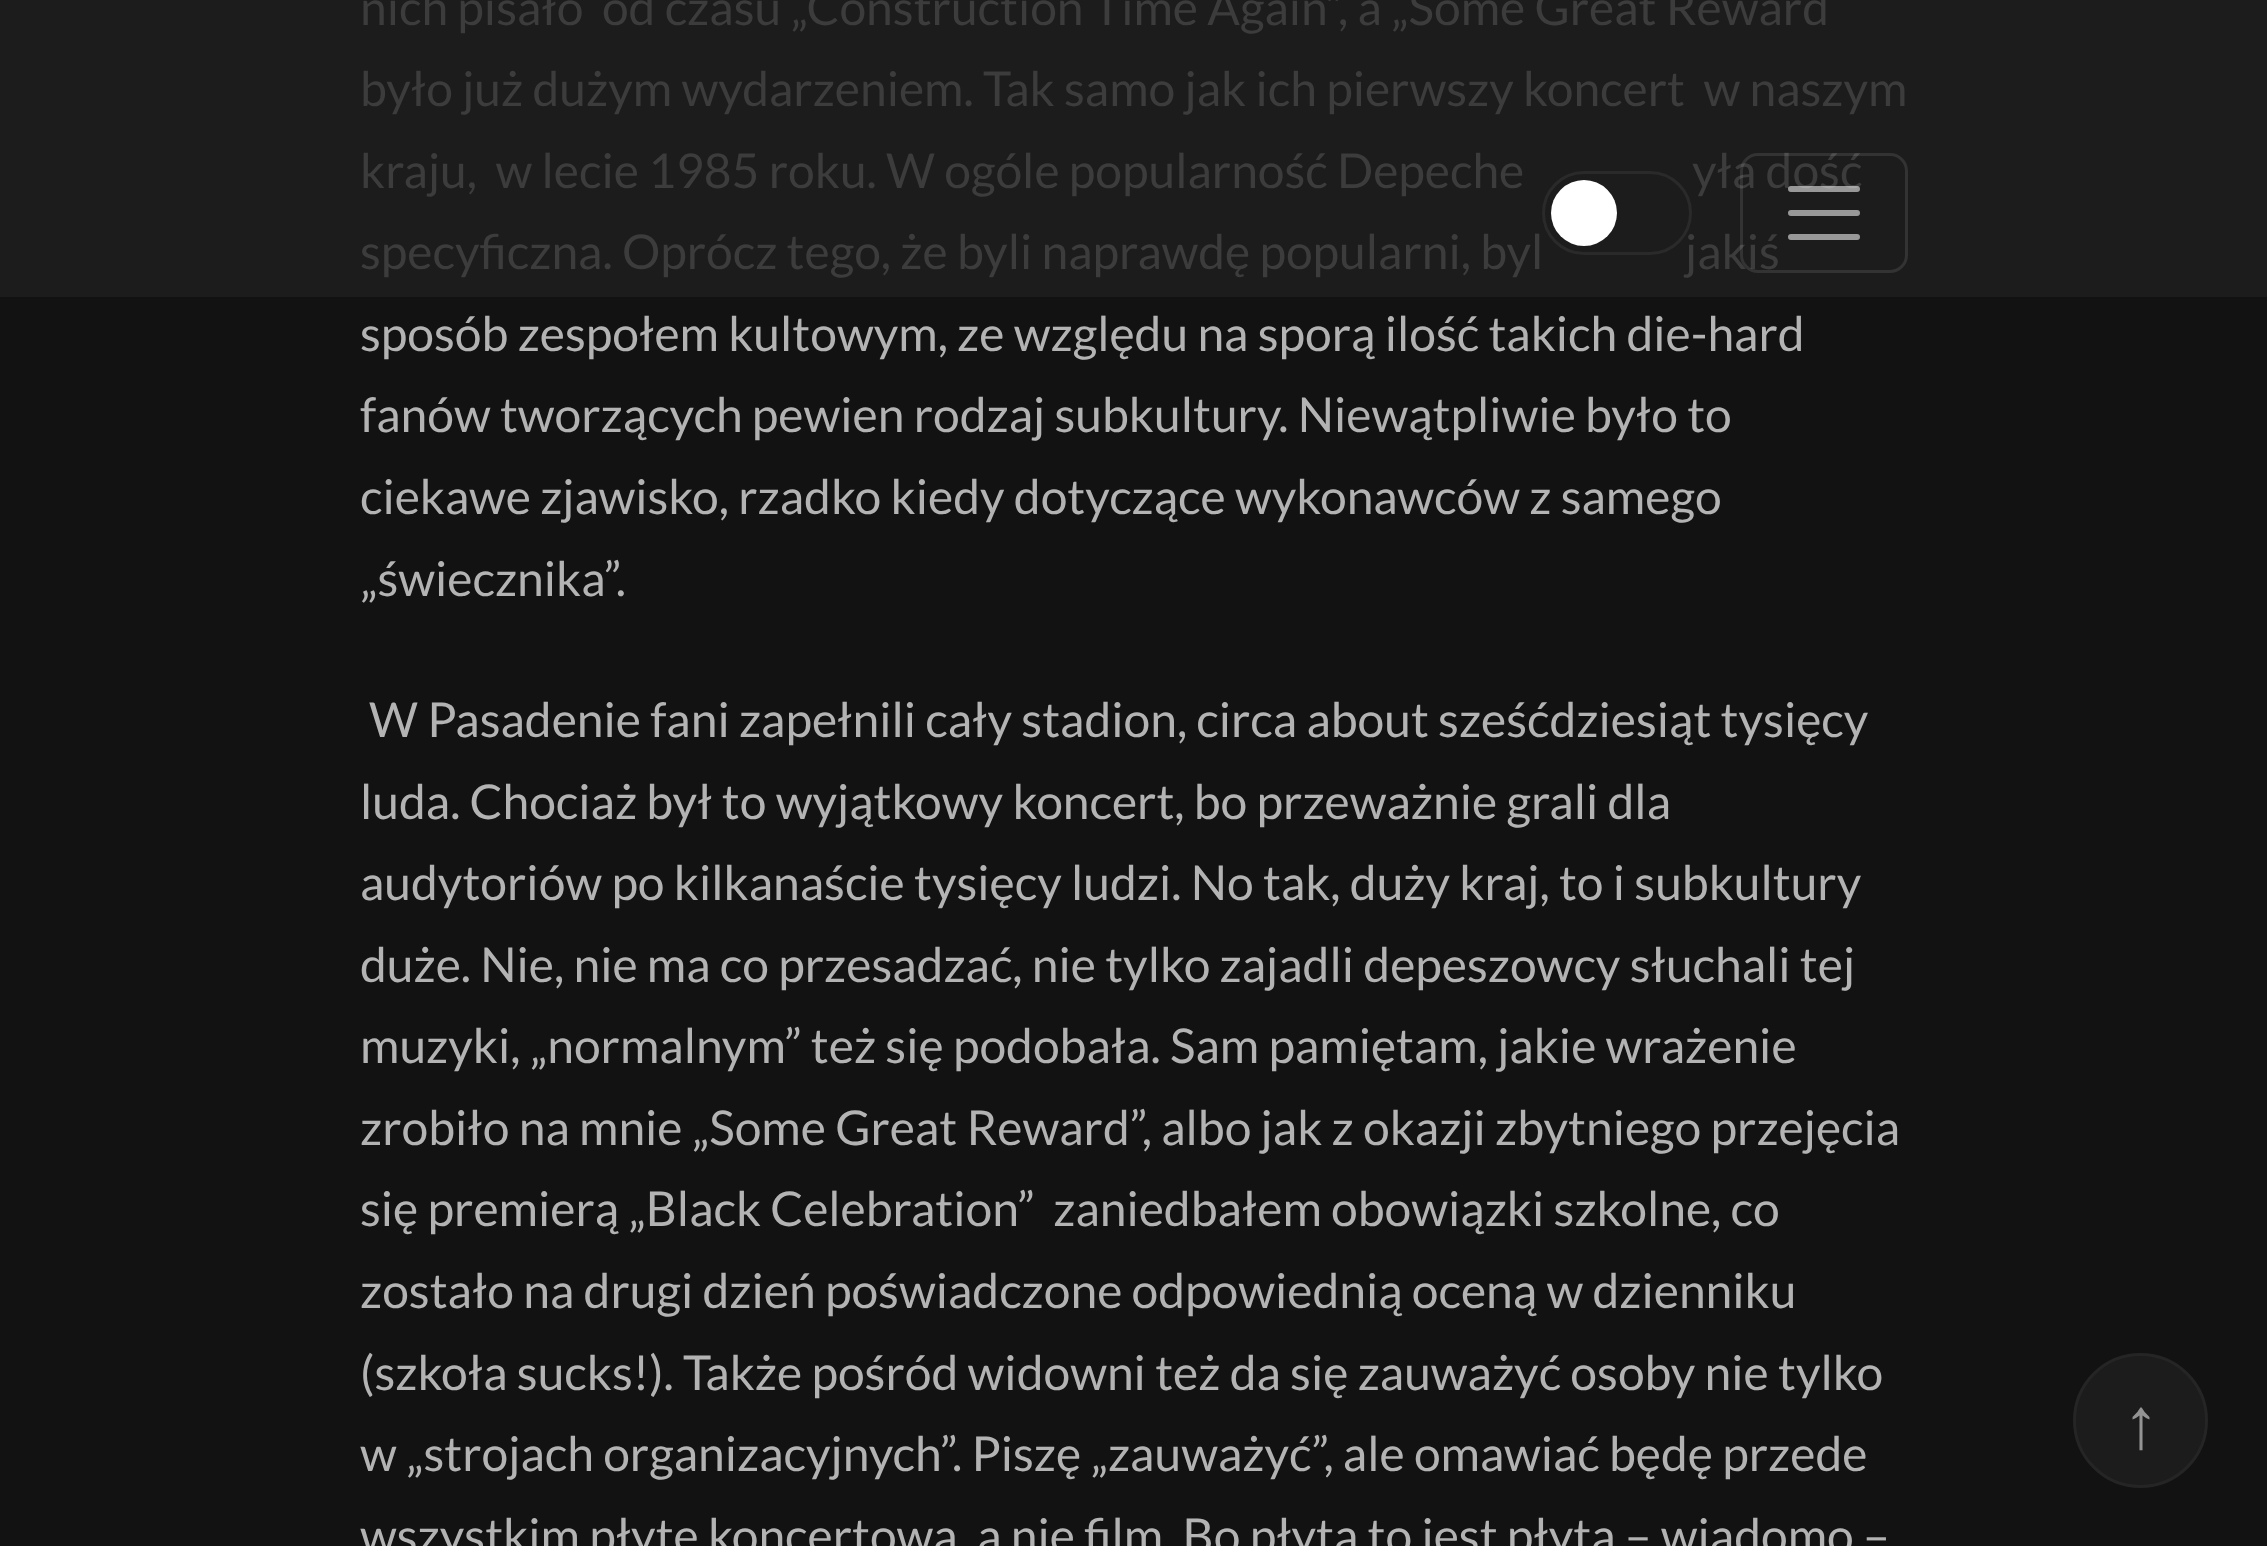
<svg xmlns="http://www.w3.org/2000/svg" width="2267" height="1546">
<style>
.a{font:48px Lato;fill:#3c3c3c}
.b{font:48px Lato;fill:#b3b3b3}
.c{font:72px Liberation Sans;fill:#939393}
</style>
<rect width="100%" height="100%" fill="#121212"/>
<path fill="#1c1c1c" d="M0 0h2267v297H0z"/>
<circle fill="#1c1c1c" stroke="#252525" stroke-width="3" cx="2140.5" cy="1420.5" r="66"/>
<text class="a" xml:space="preserve" x="360" y="25">nich pisało  od czasu „Construction Time Again”, a „Some Great Reward</text>
<text class="a" xml:space="preserve" x="360" y="106">było już dużym wydarzeniem. Tak samo jak ich pierwszy koncert  w naszym</text>
<text class="a" xml:space="preserve" x="360" y="188">kraju,  w lecie 1985 roku. W ogóle popularność Depeche</text>
<text class="a" x="1692" y="188">yła dość</text>
<text class="a" x="360" y="269">specyficzna. Oprócz tego, że byli naprawdę popularni, byl</text>
<text class="a" x="1685" y="269">jakiś</text>
<text class="b" x="360" y="351">sposób zespołem kultowym, ze względu na sporą ilość takich die-hard</text>
<text class="b" x="360" y="432">fanów tworzących pewien rodzaj subkultury. Niewątpliwie było to</text>
<text class="b" x="360" y="514">ciekawe zjawisko, rzadko kiedy dotyczące wykonawców z samego</text>
<text class="b" x="360" y="596">„świecznika”.</text>
<text class="b" x="369" y="737">W Pasadenie fani zapełnili cały stadion, circa about sześćdziesiąt tysięcy</text>
<text class="b" x="360" y="819">luda. Chociaż był to wyjątkowy koncert, bo przeważnie grali dla</text>
<text class="b" x="360" y="900">audytoriów po kilkanaście tysięcy ludzi. No tak, duży kraj, to i subkultury</text>
<text class="b" x="360" y="982">duże. Nie, nie ma co przesadzać, nie tylko zajadli depeszowcy słuchali tej</text>
<text class="b" x="360" y="1063">muzyki, „normalnym” też się podobała. Sam pamiętam, jakie wrażenie</text>
<text class="b" x="360" y="1145">zrobiło na mnie „Some Great Reward”, albo jak z okazji zbytniego przejęcia</text>
<text class="b" xml:space="preserve" x="360" y="1226">się premierą „Black Celebration”  zaniedbałem obowiązki szkolne, co</text>
<text class="b" x="360" y="1308">zostało na drugi dzień poświadczone odpowiednią oceną w dzienniku</text>
<text class="b" x="360" y="1390">(szkoła sucks!). Także pośród widowni też da się zauważyć osoby nie tylko</text>
<text class="b" x="360" y="1471">w „strojach organizacyjnych”. Piszę „zauważyć”, ale omawiać będę przede</text>
<text class="b" x="360" y="1553">wszystkim płytę koncertową, a nie film. Bo płyta to jest płyta – wiadomo –</text>
<rect fill="none" stroke="#2a2a2a" stroke-width="3" x="1543.5" y="172.5" width="147" height="81" rx="40.5"/>
<circle fill="#fff" cx="1584" cy="213" r="33"/>
<rect fill="none" stroke="#ffffff1a" stroke-width="3" x="1741.5" y="154.5" width="165" height="117" rx="16.5"/>
<path fill="none" stroke="#ffffff8c" stroke-width="6" stroke-linecap="round" d="M1791 189h66m-66 24h66m-66 24h66"/>
<text class="c" x="2123" y="1448">↑</text>
</svg>
